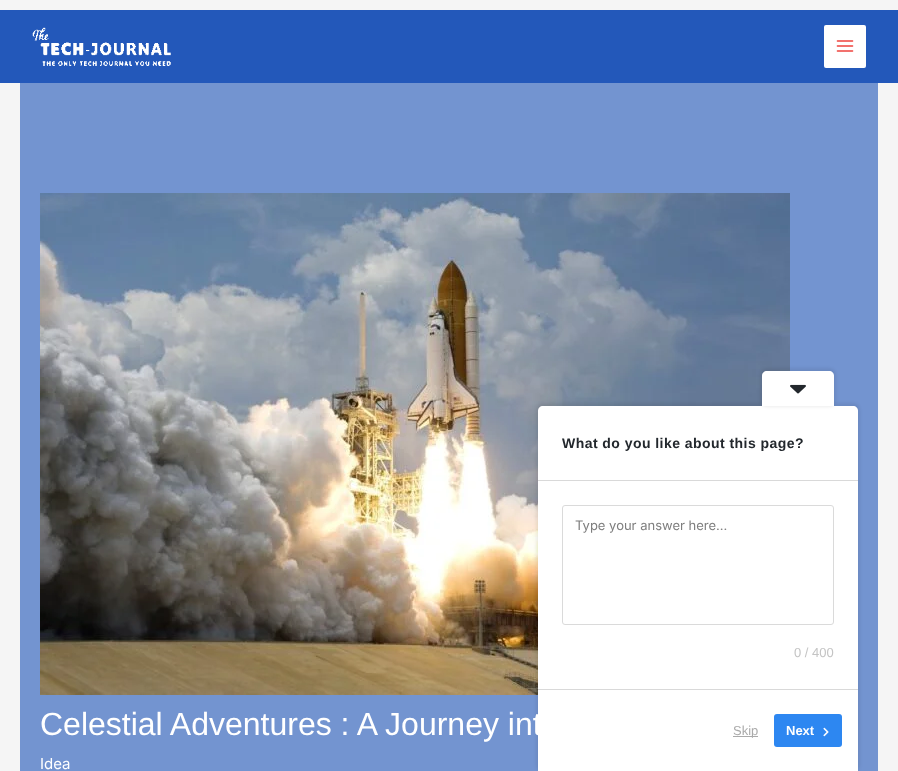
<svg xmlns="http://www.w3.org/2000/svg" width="898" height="771">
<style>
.a{font:32px Liberation Sans;fill:#fff}
.b{font:15px Inter;fill:#fff}
.c{font:bold 14px Liberation Sans;letter-spacing:0.45px;fill:#23282d}
.d{font:13px Inter;fill:#7e7e7e}
.e{font:13px Liberation Sans;fill:#c4c4c4}
.f{font:13px Liberation Sans;fill:#aaa}
.g{font:bold 13px Liberation Sans;fill:#fff}
</style>
<rect width="100%" height="100%" fill="#f5f5f5"/>
<path fill="#2358ba" d="M0 10h898v73H0z"/>
<image href="1.png" x="32" y="27" width="139" height="39"/>
<rect fill="#fff" x="824" y="25" width="42" height="43" rx="2"/>
<image href="2.png" x="836" y="40" width="18" height="12"/>
<path fill="#7394d0" d="M20 83h858v688H20z"/>
<image href="3.png" x="40" y="193" width="750" height="502"/>
<rect fill="#00000012" filter="blur(1.5px)" x="536" y="403" width="324" height="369" rx="7"/>
<path fill="#fff" d="M543 406h310c3 0 5 2 5 5v360h-320v-360c0-3 2-5 5-5z"/>
<rect fill="#00000012" filter="blur(1.5px)" x="760" y="368" width="76" height="39" rx="7"/>
<path fill="#fff" d="M767 371h62c3 0 5 2 5 5v30h-72v-30c0-3 2-5 5-5z"/>
<image href="4.png" x="790" y="384" width="16" height="10"/>
<path fill="#d9d9d9" d="M538 480h320v1H538z"/>
<path fill="#d9d9d9" d="M538 689h320v1H538z"/>
<rect fill="none" stroke="#dadada" x="562.5" y="505.5" width="271" height="119" rx="2.5"/>
<path fill="#aaa" d="M733 736h25v1H733z"/>
<rect fill="#2d87f1" x="774" y="714" width="68" height="33" rx="3"/>
<image href="5.png" x="823" y="727" width="6" height="10"/>
<text class="a" x="40" y="735">Celestial Adventures : A Journey int</text>
<text class="b" x="40" y="769">Idea</text>
<text class="c" x="562" y="448">What do you like about this page?</text>
<text class="d" x="575" y="530">Type your answer here...</text>
<text class="e" x="794" y="657">0 / 400</text>
<text class="f" x="733" y="735">Skip</text>
<text class="g" x="786" y="735">Next</text>
</svg>
